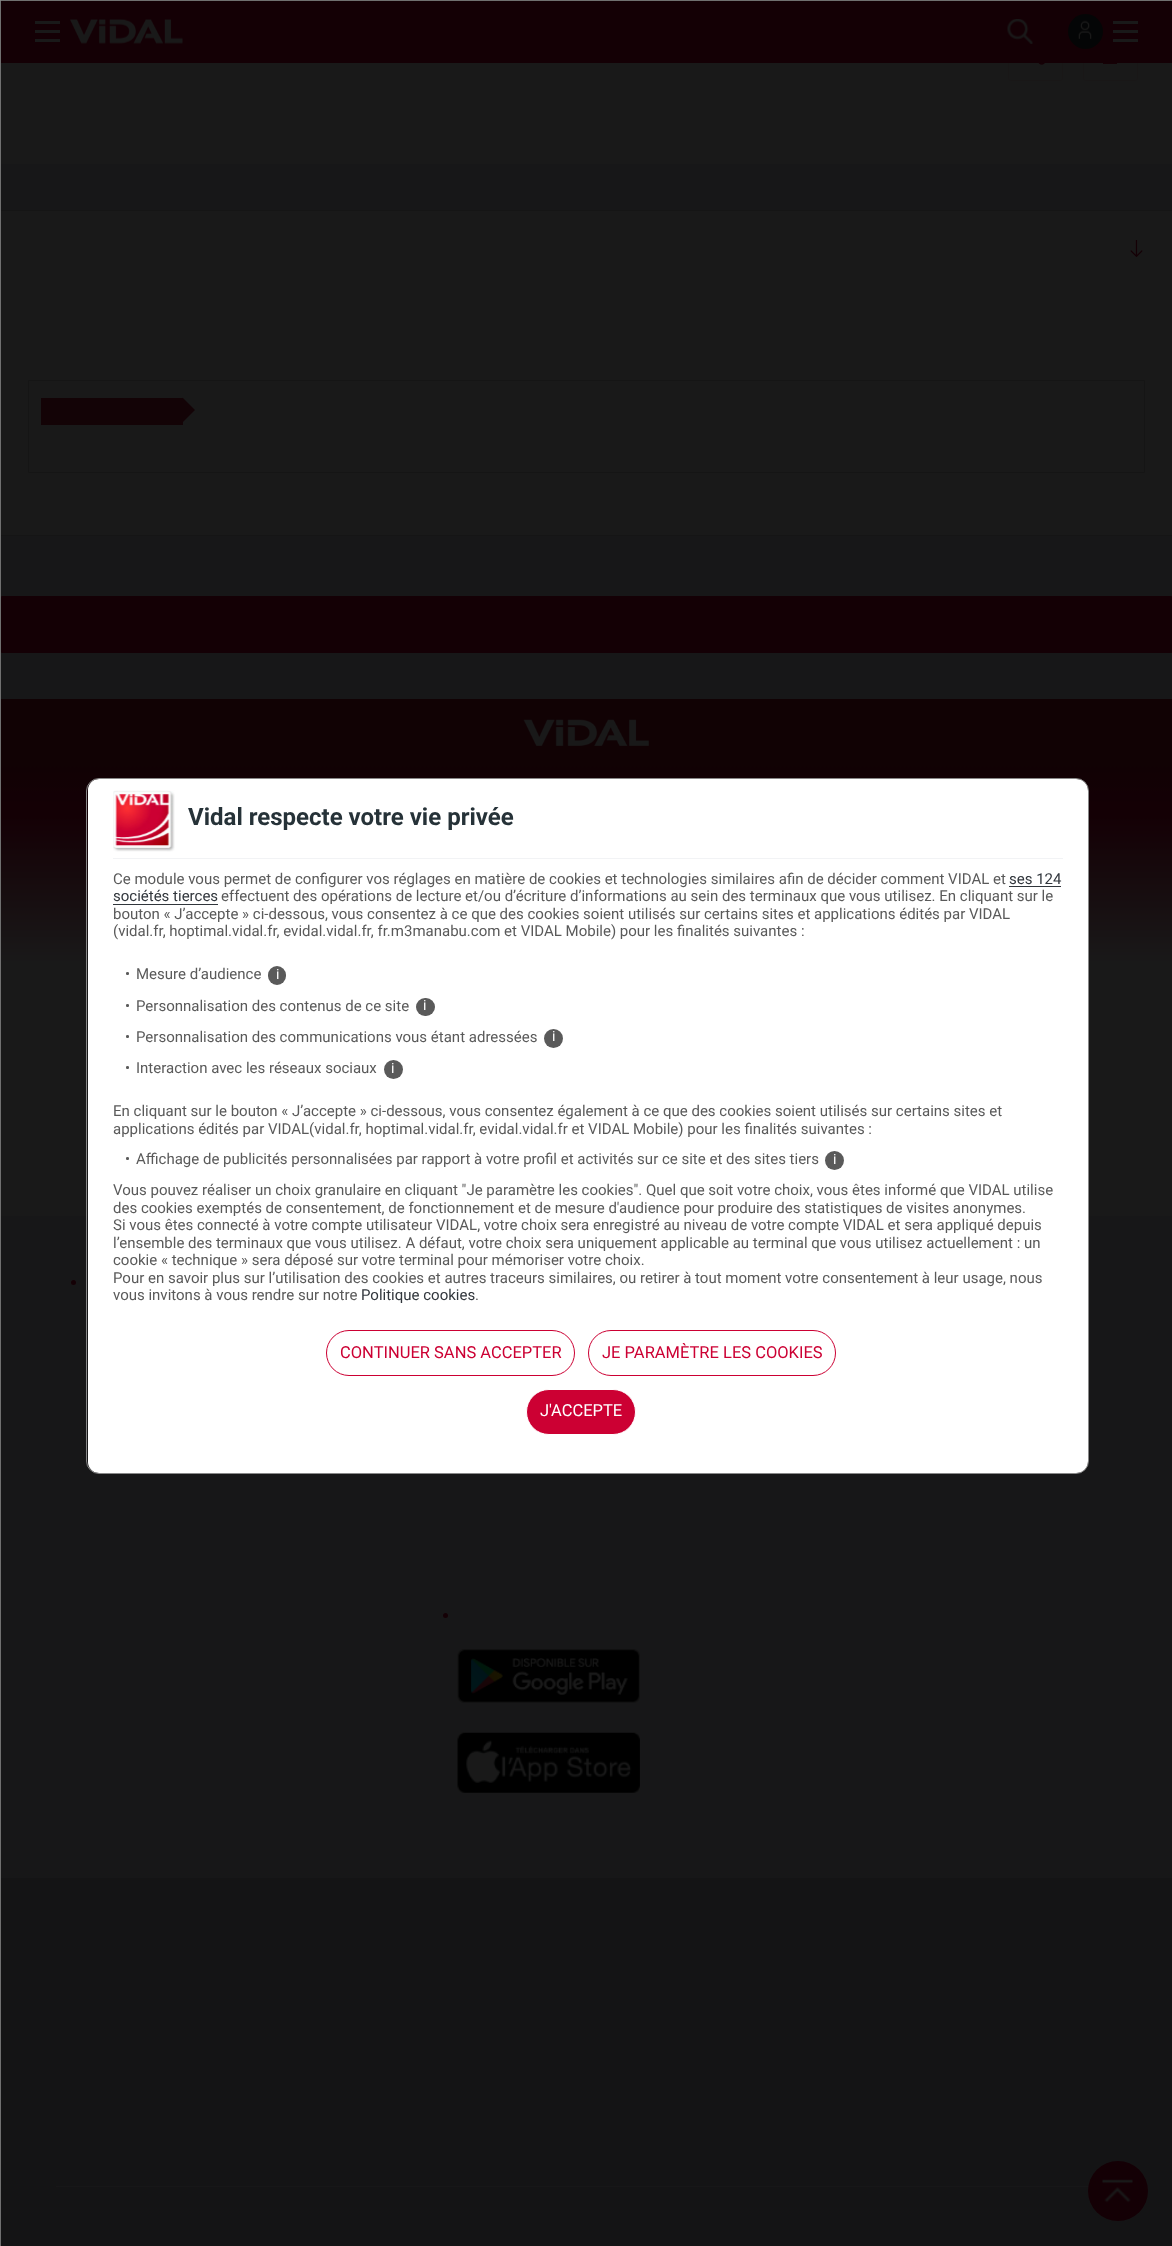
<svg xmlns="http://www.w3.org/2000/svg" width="1172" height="2246">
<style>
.a{font:bold 24px Roboto;fill:#263238}
.b{font:15px Roboto;fill:#5a5a5a}
.c{font:15px Roboto;fill:#31363c}
.d{font:14px Roboto;fill:#fff}
.e{font:16.5px Roboto;fill:#c03}
.f{font:16.5px Roboto;fill:#fff}
</style>
<defs>
<linearGradient id="g1" gradientUnits="userSpaceOnUse" x1="586" y1="759" x2="586" y2="1059"><stop offset="0" stop-color="#a91730"/><stop offset="0.18" stop-color="#c03"/><stop offset="0.69" stop-color="#fff"/></linearGradient>
</defs>
<rect width="100%" height="100%" fill="#ececee"/>
<path fill="#fff" d="M1 63h1171v101H1z"/>
<rect fill="none" stroke="#fae6eb" x="1008.5" y="26.5" width="54" height="54" rx="2"/>
<rect fill="none" stroke="#fae6eb" x="1083.5" y="26.5" width="54" height="54" rx="2"/>
<path fill="#c03" d="M1 1h1171v62H1z"/>
<path fill="#fff" d="M35 21h25v3H35z"/>
<path fill="#fff" d="M35 30h25v3H35z"/>
<path fill="#fff" d="M35 39h25v3H35z"/>
<image href="1.png" x="70" y="19" width="113" height="25"/>
<image href="2.png" x="1007" y="19" width="26" height="25"/>
<circle fill="#31363c" cx="1085.5" cy="31.5" r="17.5"/>
<image href="3.png" x="1078" y="20" width="14" height="19"/>
<path fill="#fff" d="M1113 21h25v3H1113z"/>
<path fill="#fff" d="M1113 30h25v3H1113z"/>
<path fill="#fff" d="M1113 39h25v3H1113z"/>
<image href="4.png" x="1038" y="63" width="7" height="2"/>
<image href="5.png" x="1102" y="63" width="16" height="1"/>
<path fill="#fff" stroke="#d0d1d4" d="M0.5 210.5h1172v325H0.5z"/>
<image href="6.png" x="1130" y="240" width="13" height="17"/>
<path fill="none" stroke="#d0d1d4" d="M28.5 380.5h1116v92H28.5z"/>
<path fill="#c0273e" d="M41 398h142v27H41z"/>
<path fill="#c0273e" d="M182.5 422.5v-25l12.5 12.5z"/>
<rect fill="#c03" y="596" width="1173" height="57" rx="2.5"/>
<path fill="#fff" d="M1 1059h1171v157H1z"/>
<path fill="#a81830" d="M1 699h1171v60H1z"/>
<image href="7.png" x="523" y="719" width="126" height="27"/>
<path fill="url(#g1)" d="M1 759h1171v300H1z"/>
<circle fill="#c03" cx="73.5" cy="1282.5" r="2.5"/>
<circle fill="#c03" cx="445.5" cy="1615.5" r="2.5"/>
<image href="8.png" x="457" y="1649" width="183" height="54"/>
<image href="9.png" x="457" y="1732" width="183" height="61"/>
<path fill="#ceced4" d="M1 1878h1171v368H1z"/>
<path fill="#e9eaed" d="M56 2186h1033v1H56z"/>
<circle fill="#c03" cx="1118" cy="2191" r="30"/>
<image href="11.png" x="1102" y="2179" width="31" height="24"/>
<path fill="#000000e6" stroke="#707070" d="M0.5 0.5h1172v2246H0.5z"/>
<rect fill="#fff" x="88" y="779" width="1000" height="694" rx="11"/>
<rect fill="none" stroke="#888" x="86.5" y="778.5" width="1002" height="695" rx="12.5"/>
<image href="10.png" x="113" y="790" width="62" height="62"/>
<path fill="#f2f3f5" d="M113 858h950v1H113z"/>
<path fill="#31363c" d="M1009 886h52v1H1009z"/>
<path fill="#31363c" d="M113 904h105v1H113z"/>
<rect fill="#5a5a5a" x="268" y="966" width="18" height="19" rx="9"/>
<rect fill="#5a5a5a" x="416" y="998" width="19" height="18" rx="9"/>
<circle fill="#5a5a5a" cx="553.5" cy="1038.5" r="9.5"/>
<circle fill="#5a5a5a" cx="393.5" cy="1069.5" r="9.5"/>
<circle fill="#5a5a5a" cx="834.5" cy="1160.5" r="9.5"/>
<rect fill="none" stroke="#c03" x="326.5" y="1330.5" width="248" height="45" rx="22.5"/>
<rect fill="none" stroke="#c03" x="588.5" y="1330.5" width="247" height="45" rx="22.5"/>
<rect fill="#c03" stroke="#fff" x="526.5" y="1389.5" width="109" height="45" rx="22.5"/>
<text class="a" x="188" y="825">Vidal respecte votre vie privée</text>
<text class="b" x="113" y="884">Ce module vous permet de configurer vos réglages en matière de cookies et technologies similaires afin de décider comment VIDAL et</text>
<text class="c" x="1009" y="884">ses 124</text>
<text class="c" x="113" y="901">sociétés tierces</text>
<text class="b" x="221" y="901">effectuent des opérations de lecture et/ou d’écriture d’informations au sein des terminaux que vous utilisez. En cliquant sur le</text>
<text class="b" x="113" y="919">bouton « J’accepte » ci-dessous, vous consentez à ce que des cookies soient utilisés sur certains sites et applications édités par VIDAL</text>
<text class="b" x="113" y="936">(vidal.fr, hoptimal.vidal.fr, evidal.vidal.fr, fr.m3manabu.com et VIDAL Mobile) pour les finalités suivantes :</text>
<text class="b" x="125" y="979">•</text>
<text class="b" x="136" y="979">Mesure d’audience</text>
<text class="d" x="276" y="979">i</text>
<text class="b" x="125" y="1011">•</text>
<text class="b" x="136" y="1011">Personnalisation des contenus de ce site</text>
<text class="d" x="423" y="1010">i</text>
<text class="b" x="125" y="1042">•</text>
<text class="b" x="136" y="1042">Personnalisation des communications vous étant adressées</text>
<text class="d" x="552" y="1041">i</text>
<text class="b" x="125" y="1073">•</text>
<text class="b" x="136" y="1073">Interaction avec les réseaux sociaux</text>
<text class="d" x="391" y="1073">i</text>
<text class="b" x="113" y="1116">En cliquant sur le bouton « J’accepte » ci-dessous, vous consentez également à ce que des cookies soient utilisés sur certains sites et</text>
<text class="b" x="113" y="1134">applications édités par VIDAL(vidal.fr, hoptimal.vidal.fr, evidal.vidal.fr et VIDAL Mobile) pour les finalités suivantes :</text>
<text class="b" x="125" y="1164">•</text>
<text class="b" x="136" y="1164">Affichage de publicités personnalisées par rapport à votre profil et activités sur ce site et des sites tiers</text>
<text class="d" x="833" y="1164">i</text>
<text class="b" x="113" y="1195">Vous pouvez réaliser un choix granulaire en cliquant "Je paramètre les cookies". Quel que soit votre choix, vous êtes informé que VIDAL utilise</text>
<text class="b" x="113" y="1213">des cookies exemptés de consentement, de fonctionnement et de mesure d'audience pour produire des statistiques de visites anonymes.</text>
<text class="b" x="113" y="1230">Si vous êtes connecté à votre compte utilisateur VIDAL, votre choix sera enregistré au niveau de votre compte VIDAL et sera appliqué depuis</text>
<text class="b" x="113" y="1248">l’ensemble des terminaux que vous utilisez. A défaut, votre choix sera uniquement applicable au terminal que vous utilisez actuellement : un</text>
<text class="b" x="113" y="1265">cookie « technique » sera déposé sur votre terminal pour mémoriser votre choix.</text>
<text class="b" x="113" y="1283">Pour en savoir plus sur l’utilisation des cookies et autres traceurs similaires, ou retirer à tout moment votre consentement à leur usage, nous</text>
<text class="b" x="113" y="1300">vous invitons à vous rendre sur notre</text>
<text class="c" x="361" y="1300">Politique cookies</text>
<text class="b" x="475" y="1300">.</text>
<text class="e" x="340" y="1358">CONTINUER SANS ACCEPTER</text>
<text class="e" x="602" y="1358">JE PARAMÈTRE LES COOKIES</text>
<text class="f" x="540" y="1416">J'ACCEPTE</text>
</svg>
